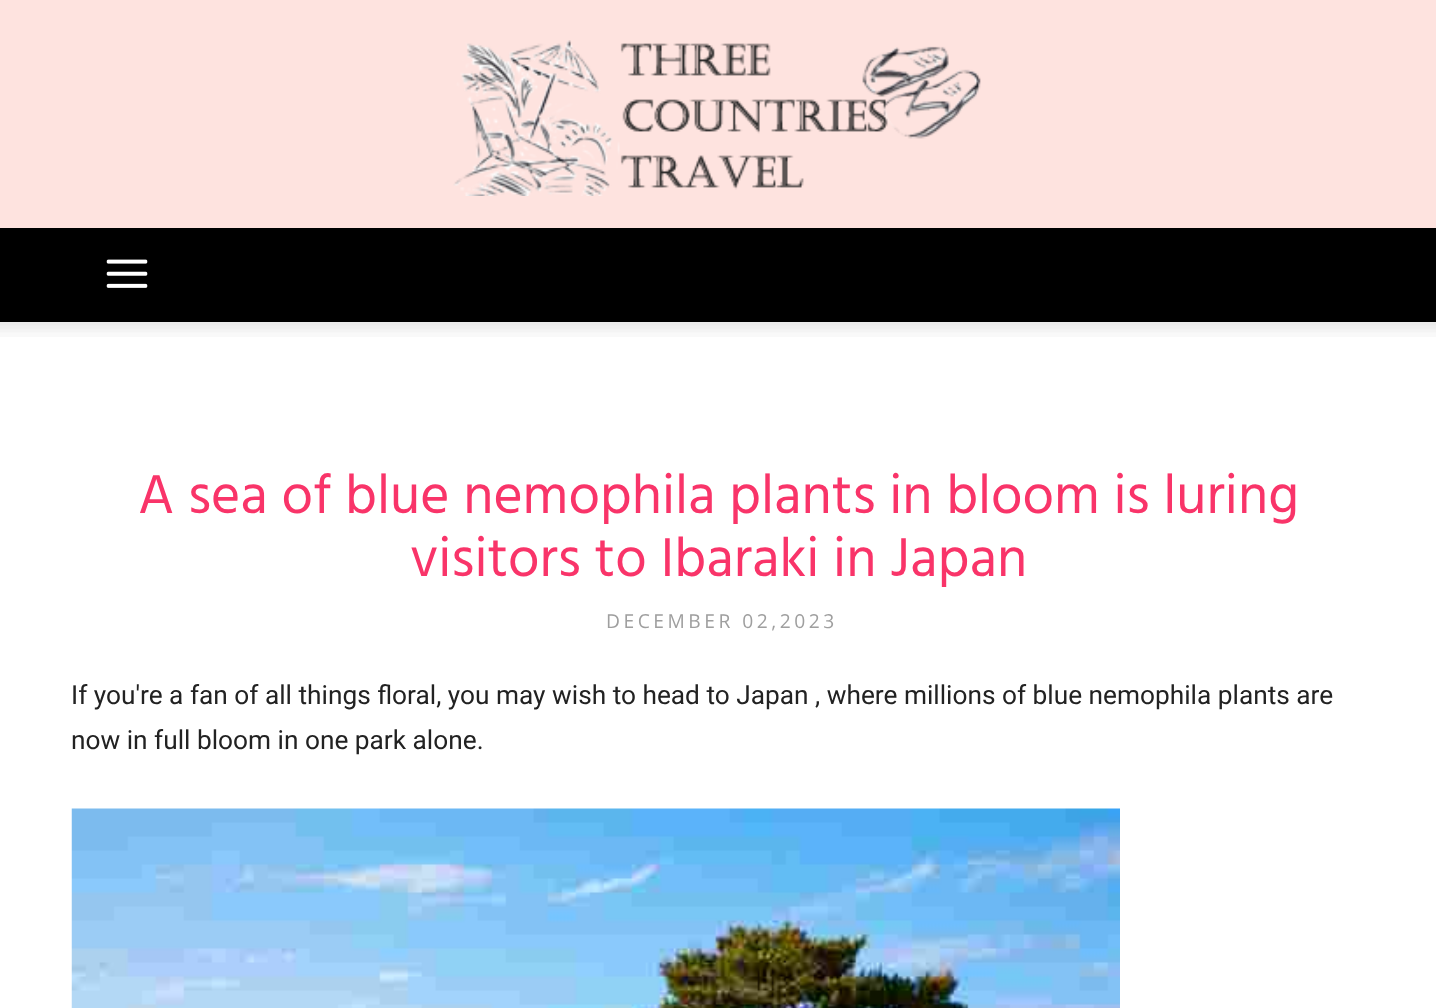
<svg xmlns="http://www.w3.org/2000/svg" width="1436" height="1008">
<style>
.a{font:56px Hind;fill:#f93469}
.b{font:19.25px Open Sans;letter-spacing:3.5px;fill:#9f9f9f}
.c{font:26.25px Roboto;fill:#222}
</style>
<rect width="100%" height="100%" fill="#fff"/>
<path fill="#fee3df" d="M0 0h1436v228H0z"/>
<image href="1.png" x="453" y="40" width="528" height="156"/>
<path fill="#000" d="M0 228h1436v94H0z"/>
<image href="2.png" x="106" y="259" width="42" height="29"/>
<image href="3.png" x="0" y="322" width="1436" height="15"/>
<image href="4.png" x="71" y="808" width="1049" height="200"/>
<text class="a" x="138" y="513">A sea of blue nemophila plants in bloom is luring</text>
<text class="a" x="410" y="576">visitors to Ibaraki in Japan</text>
<text class="b" x="606" y="628">DECEMBER 02,2023</text>
<text class="c" x="71" y="704">If you're a fan of all things floral, you may wish to head to Japan , where millions of blue nemophila plants are</text>
<text class="c" x="71" y="749">now in full bloom in one park alone.</text>
</svg>
